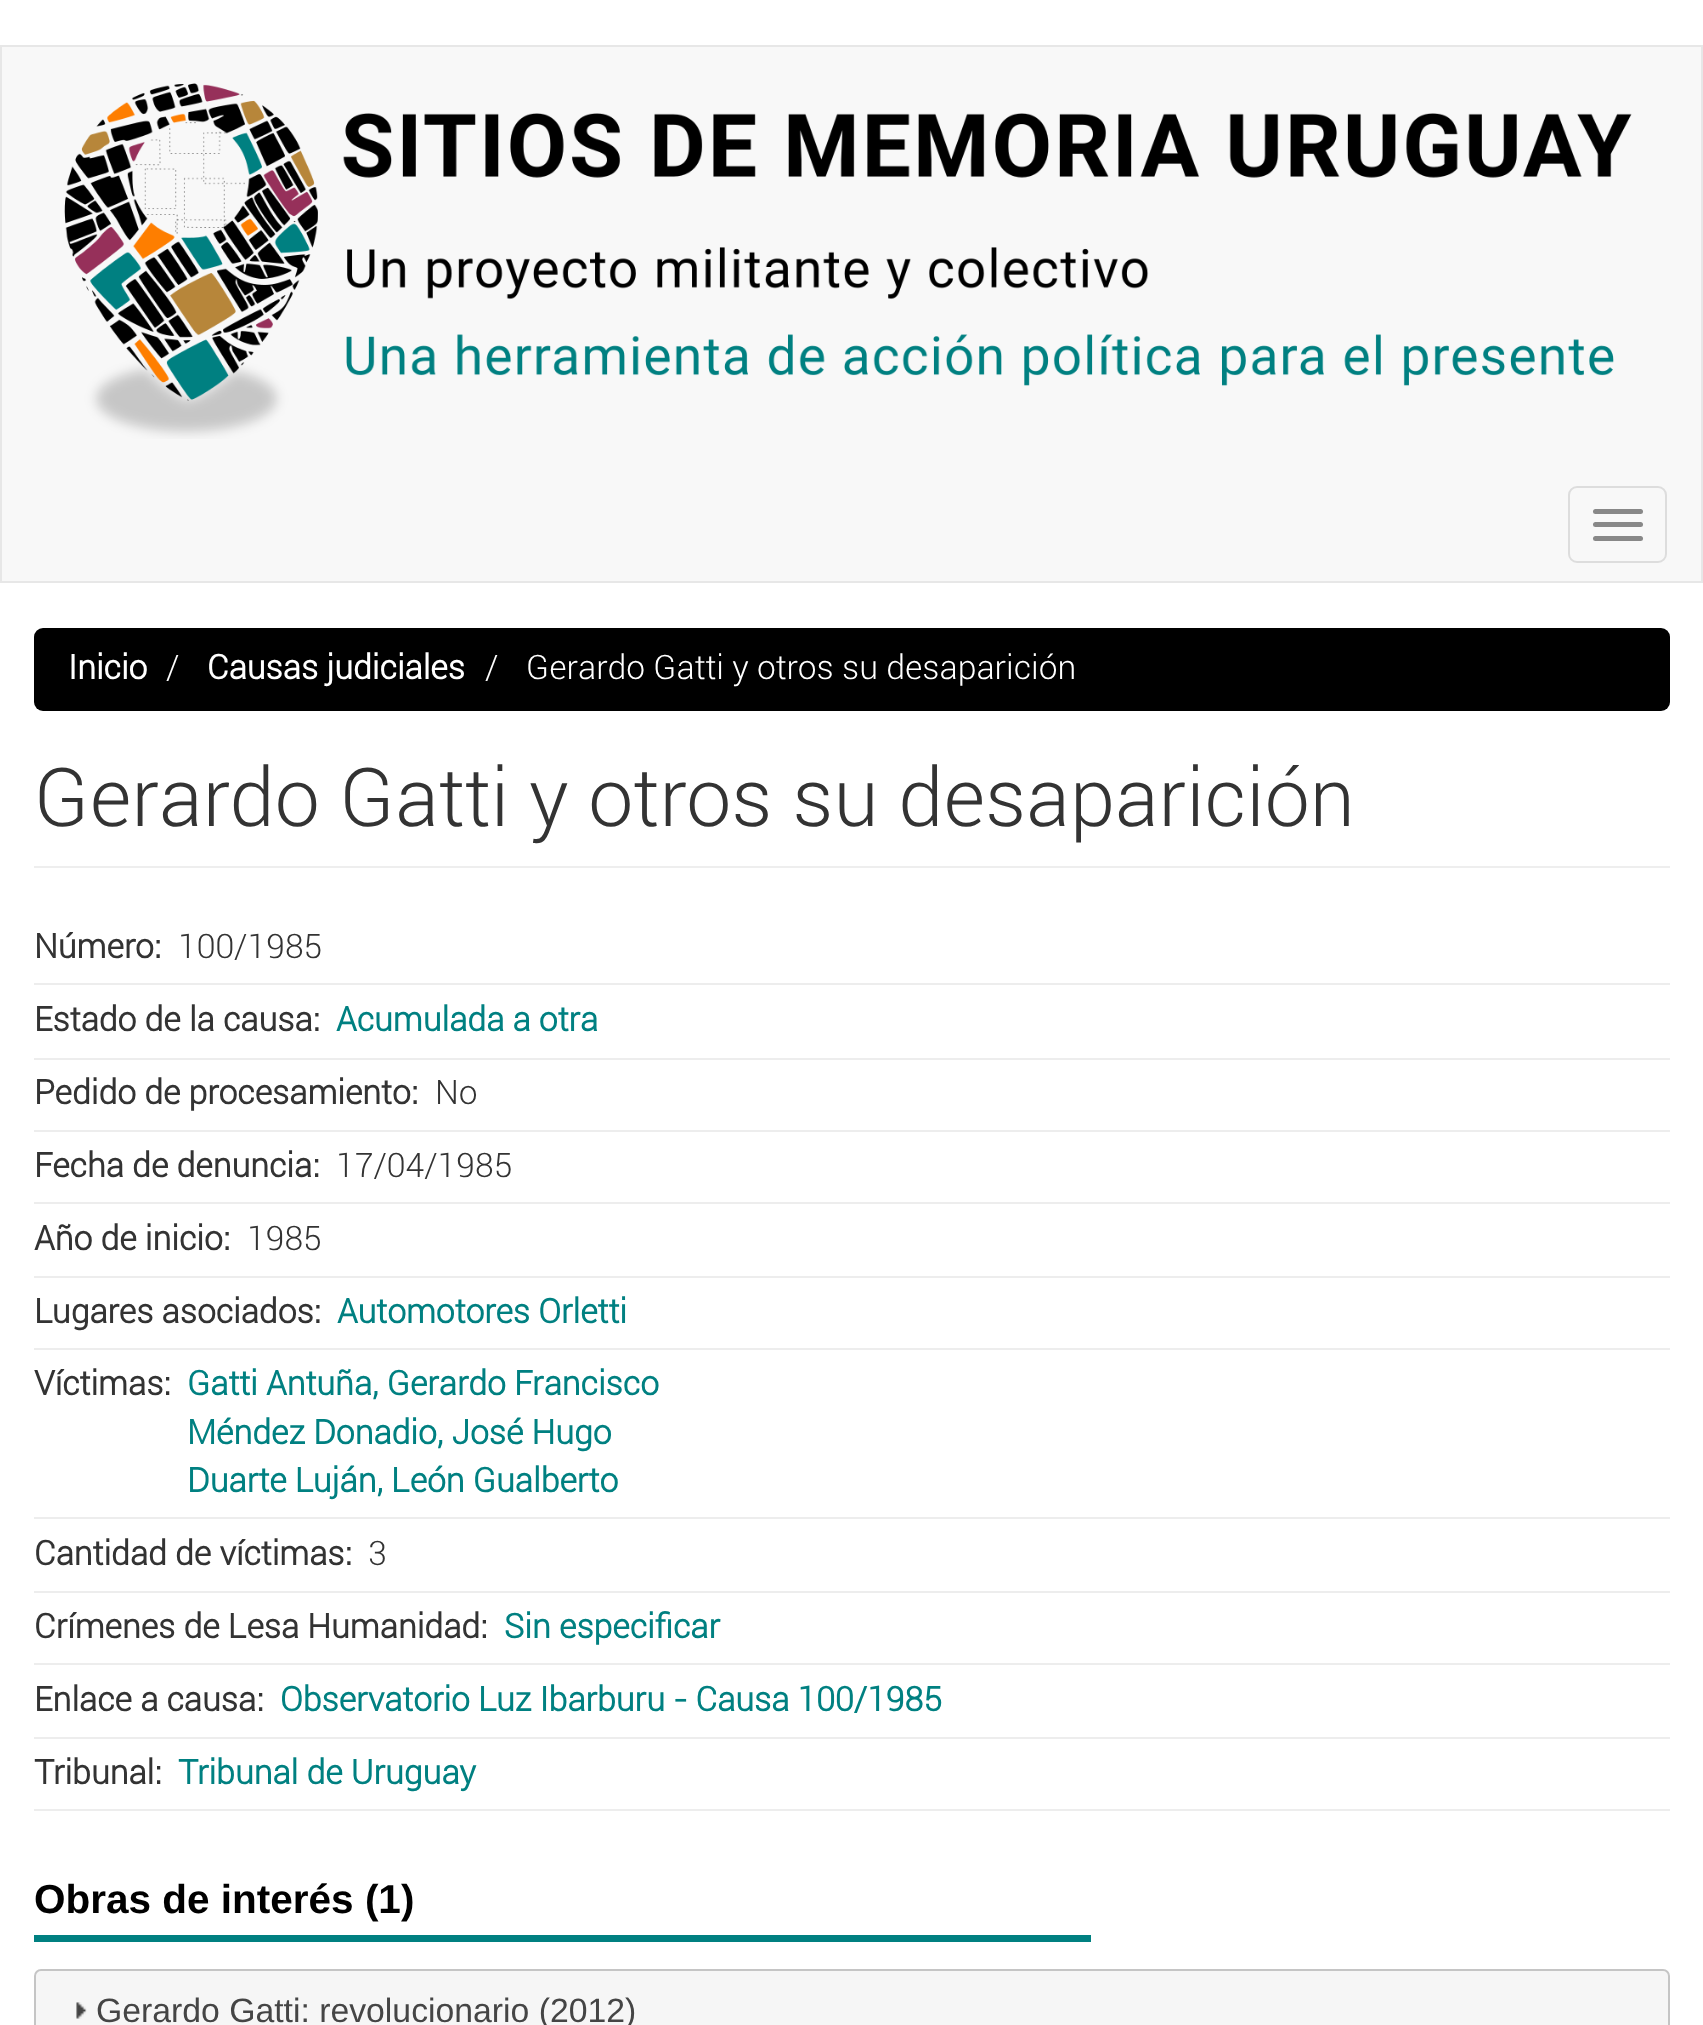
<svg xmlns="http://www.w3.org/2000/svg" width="1703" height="2025">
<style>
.a{font:bold 33.75px Roboto;fill:#fff}
.b{font:300 33.75px Roboto;fill:#fff}
.c{font:300 81px Roboto;fill:#333}
.d{font:bold 33.75px Roboto;fill:#333}
.e{font:300 33.75px Roboto;fill:#333}
.f{font:bold 33.75px Roboto;fill:#008081}
.g{font:bold 40.5px Liberation Sans;fill:#000}
.h{font:33.75px Liberation Sans;fill:#454545}
</style>
<rect width="100%" height="100%" fill="#fff"/>
<path fill="#f8f8f8" stroke="#e7e7e7" stroke-width="2" d="M1 46h1701v536H1z"/>
<image href="1.png" x="64" y="83" width="1568" height="356"/>
<rect fill="none" stroke="#ddd" stroke-width="2" x="1569" y="487" width="97" height="75" rx="8"/>
<rect fill="#888" x="1593" y="509" width="50" height="5" rx="2.5"/>
<rect fill="#888" x="1593" y="522" width="50" height="5" rx="2.5"/>
<rect fill="#888" x="1593" y="536" width="50" height="5" rx="2.5"/>
<rect fill="#000" x="34" y="628" width="1636" height="83" rx="9"/>
<path fill="#eee" d="M34 866h1636v2H34z"/>
<path fill="#ededed" d="M34 983h1636v2H34z"/>
<path fill="#ededed" d="M34 1058h1636v2H34z"/>
<path fill="#ededed" d="M34 1130h1636v2H34z"/>
<path fill="#ededed" d="M34 1202h1636v2H34z"/>
<path fill="#ededed" d="M34 1276h1636v2H34z"/>
<path fill="#ededed" d="M34 1348h1636v2H34z"/>
<path fill="#ededed" d="M34 1517h1636v2H34z"/>
<path fill="#ededed" d="M34 1591h1636v2H34z"/>
<path fill="#ededed" d="M34 1663h1636v2H34z"/>
<path fill="#ededed" d="M34 1737h1636v2H34z"/>
<path fill="#ededed" d="M34 1809h1636v2H34z"/>
<path fill="#008081" d="M34 1935h1057v7H34z"/>
<rect fill="#f6f6f6" stroke="#c5c5c5" stroke-width="2" x="35" y="1970" width="1634" height="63" rx="6"/>
<image href="2.png" x="76" y="2002" width="11" height="17"/>
<text class="a" x="68" y="679">Inicio</text>
<text class="b" x="166" y="679">/</text>
<text class="a" x="207" y="679">Causas judiciales</text>
<text class="b" x="485" y="679">/</text>
<text class="b" x="526" y="679">Gerardo Gatti y otros su desaparición</text>
<text class="c" x="34" y="826">Gerardo Gatti y otros su desaparición</text>
<text class="d" x="34" y="958">Número:</text>
<text class="e" x="178" y="958">100/1985</text>
<text class="d" x="34" y="1031">Estado de la causa:</text>
<text class="f" x="336" y="1031">Acumulada a otra</text>
<text class="d" x="34" y="1104">Pedido de procesamiento:</text>
<text class="e" x="435" y="1104">No</text>
<text class="d" x="34" y="1177">Fecha de denuncia:</text>
<text class="e" x="336" y="1177">17/04/1985</text>
<text class="d" x="34" y="1250">Año de inicio:</text>
<text class="e" x="247" y="1250">1985</text>
<text class="d" x="34" y="1323">Lugares asociados:</text>
<text class="f" x="337" y="1323">Automotores Orletti</text>
<text class="d" x="34" y="1395">Víctimas:</text>
<text class="f" x="187" y="1395">Gatti Antuña, Gerardo Francisco</text>
<text class="f" x="187" y="1444">Méndez Donadio, José Hugo</text>
<text class="f" x="187" y="1492">Duarte Luján, León Gualberto</text>
<text class="d" x="34" y="1565">Cantidad de víctimas:</text>
<text class="e" x="368" y="1565">3</text>
<text class="d" x="34" y="1638">Crímenes de Lesa Humanidad:</text>
<text class="f" x="504" y="1638">Sin especificar</text>
<text class="d" x="34" y="1711">Enlace a causa:</text>
<text class="f" x="280" y="1711">Observatorio Luz Ibarburu - Causa 100/1985</text>
<text class="d" x="34" y="1784">Tribunal:</text>
<text class="f" x="178" y="1784">Tribunal de Uruguay</text>
<text class="g" x="34" y="1913">Obras de interés (1)</text>
<text class="h" x="96" y="2022">Gerardo Gatti: revolucionario (2012)</text>
</svg>
